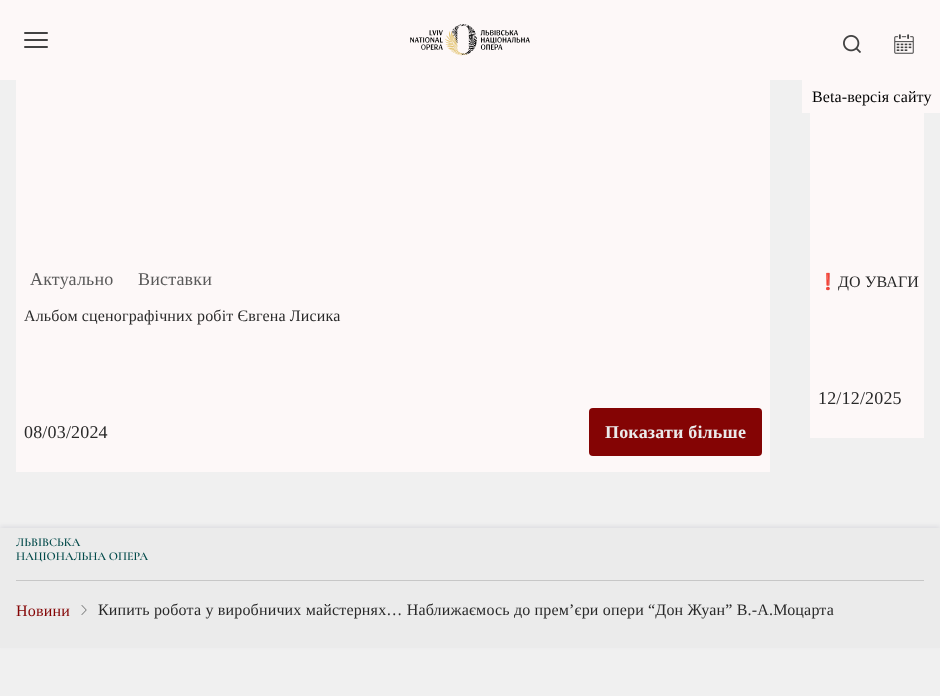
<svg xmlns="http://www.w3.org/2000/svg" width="940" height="696">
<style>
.a{font:16px Liberation Serif;letter-spacing:0.1px;fill:#000}
.b{font:18px Liberation Serif;letter-spacing:0.18px;fill:#595959}
.c{font:16px Liberation Serif;letter-spacing:0.15px;fill:#292929}
.d{font:18px Liberation Serif;letter-spacing:0.18px;fill:#292929}
.e{font:bold 18px Liberation Serif;letter-spacing:0.18px;fill:#ebebeb}
.f{font:16px Noto Color Emoji;letter-spacing:0.15px;fill:#292929}
.g{font:600 12px Cormorant;fill:#004949}
.h{font:16px Liberation Serif;letter-spacing:0.18px;fill:#840404}
.i{font:16px Liberation Serif;letter-spacing:0.18px;fill:#292929}
</style>
<rect width="100%" height="100%" fill="#f0f0f0"/>
<path fill="#fdf8f8" d="M0 0h940v80H0z"/>
<rect fill="#424242" x="24" y="32" width="24" height="2" rx="1"/>
<rect fill="#424242" x="24" y="39" width="24" height="2" rx="1"/>
<rect fill="#424242" x="24" y="46" width="24" height="2" rx="1"/>
<image href="1.png" x="410" y="24" width="120" height="32"/>
<image href="2.png" x="843" y="35" width="18" height="18"/>
<image href="3.png" x="894" y="34" width="20" height="20"/>
<path fill="#fdf8f8" d="M802 80h138v33H802z"/>
<path fill="#fdf8f8" d="M16 80h754v392H16z"/>
<rect fill="#840404" x="589" y="408" width="173" height="48" rx="4"/>
<path fill="#fdf8f8" d="M810 113h114v325H810z"/>
<path fill="#1a1f4f14" filter="blur(2px)" d="M0 526h940v120H0z"/>
<path fill="#ebebeb" d="M0 528h940v120H0z"/>
<path fill="#c7c7c7" d="M16 580h908v1H16z"/>
<image href="4.png" x="81" y="605" width="6" height="10"/>
<text class="a" x="812" y="102">Beta-версія сайту</text>
<text class="b" x="30" y="285">Актуально</text>
<text class="b" x="138" y="285">Виставки</text>
<text class="c" x="24" y="321">Альбом сценографічних робіт Євгена Лисика</text>
<text class="d" x="24" y="438">08/03/2024</text>
<text class="e" x="605" y="438">Показати більше</text>
<text class="f" x="818" y="287">❗️</text>
<text class="c" x="838" y="287">ДО УВАГИ</text>
<text class="d" x="818" y="404">12/12/2025</text>
<text class="g" x="16" y="546">ЛЬВIВСЬКА</text>
<text class="g" x="16" y="560">НАЦIОНАЛЬНА ОПЕРА</text>
<text class="h" x="16" y="616">Новини</text>
<text class="i" x="98" y="615">Кипить робота у виробничих майстернях… Наближаємось до прем’єри опери “Дон Жуан” В.-А.Моцарта</text>
</svg>
